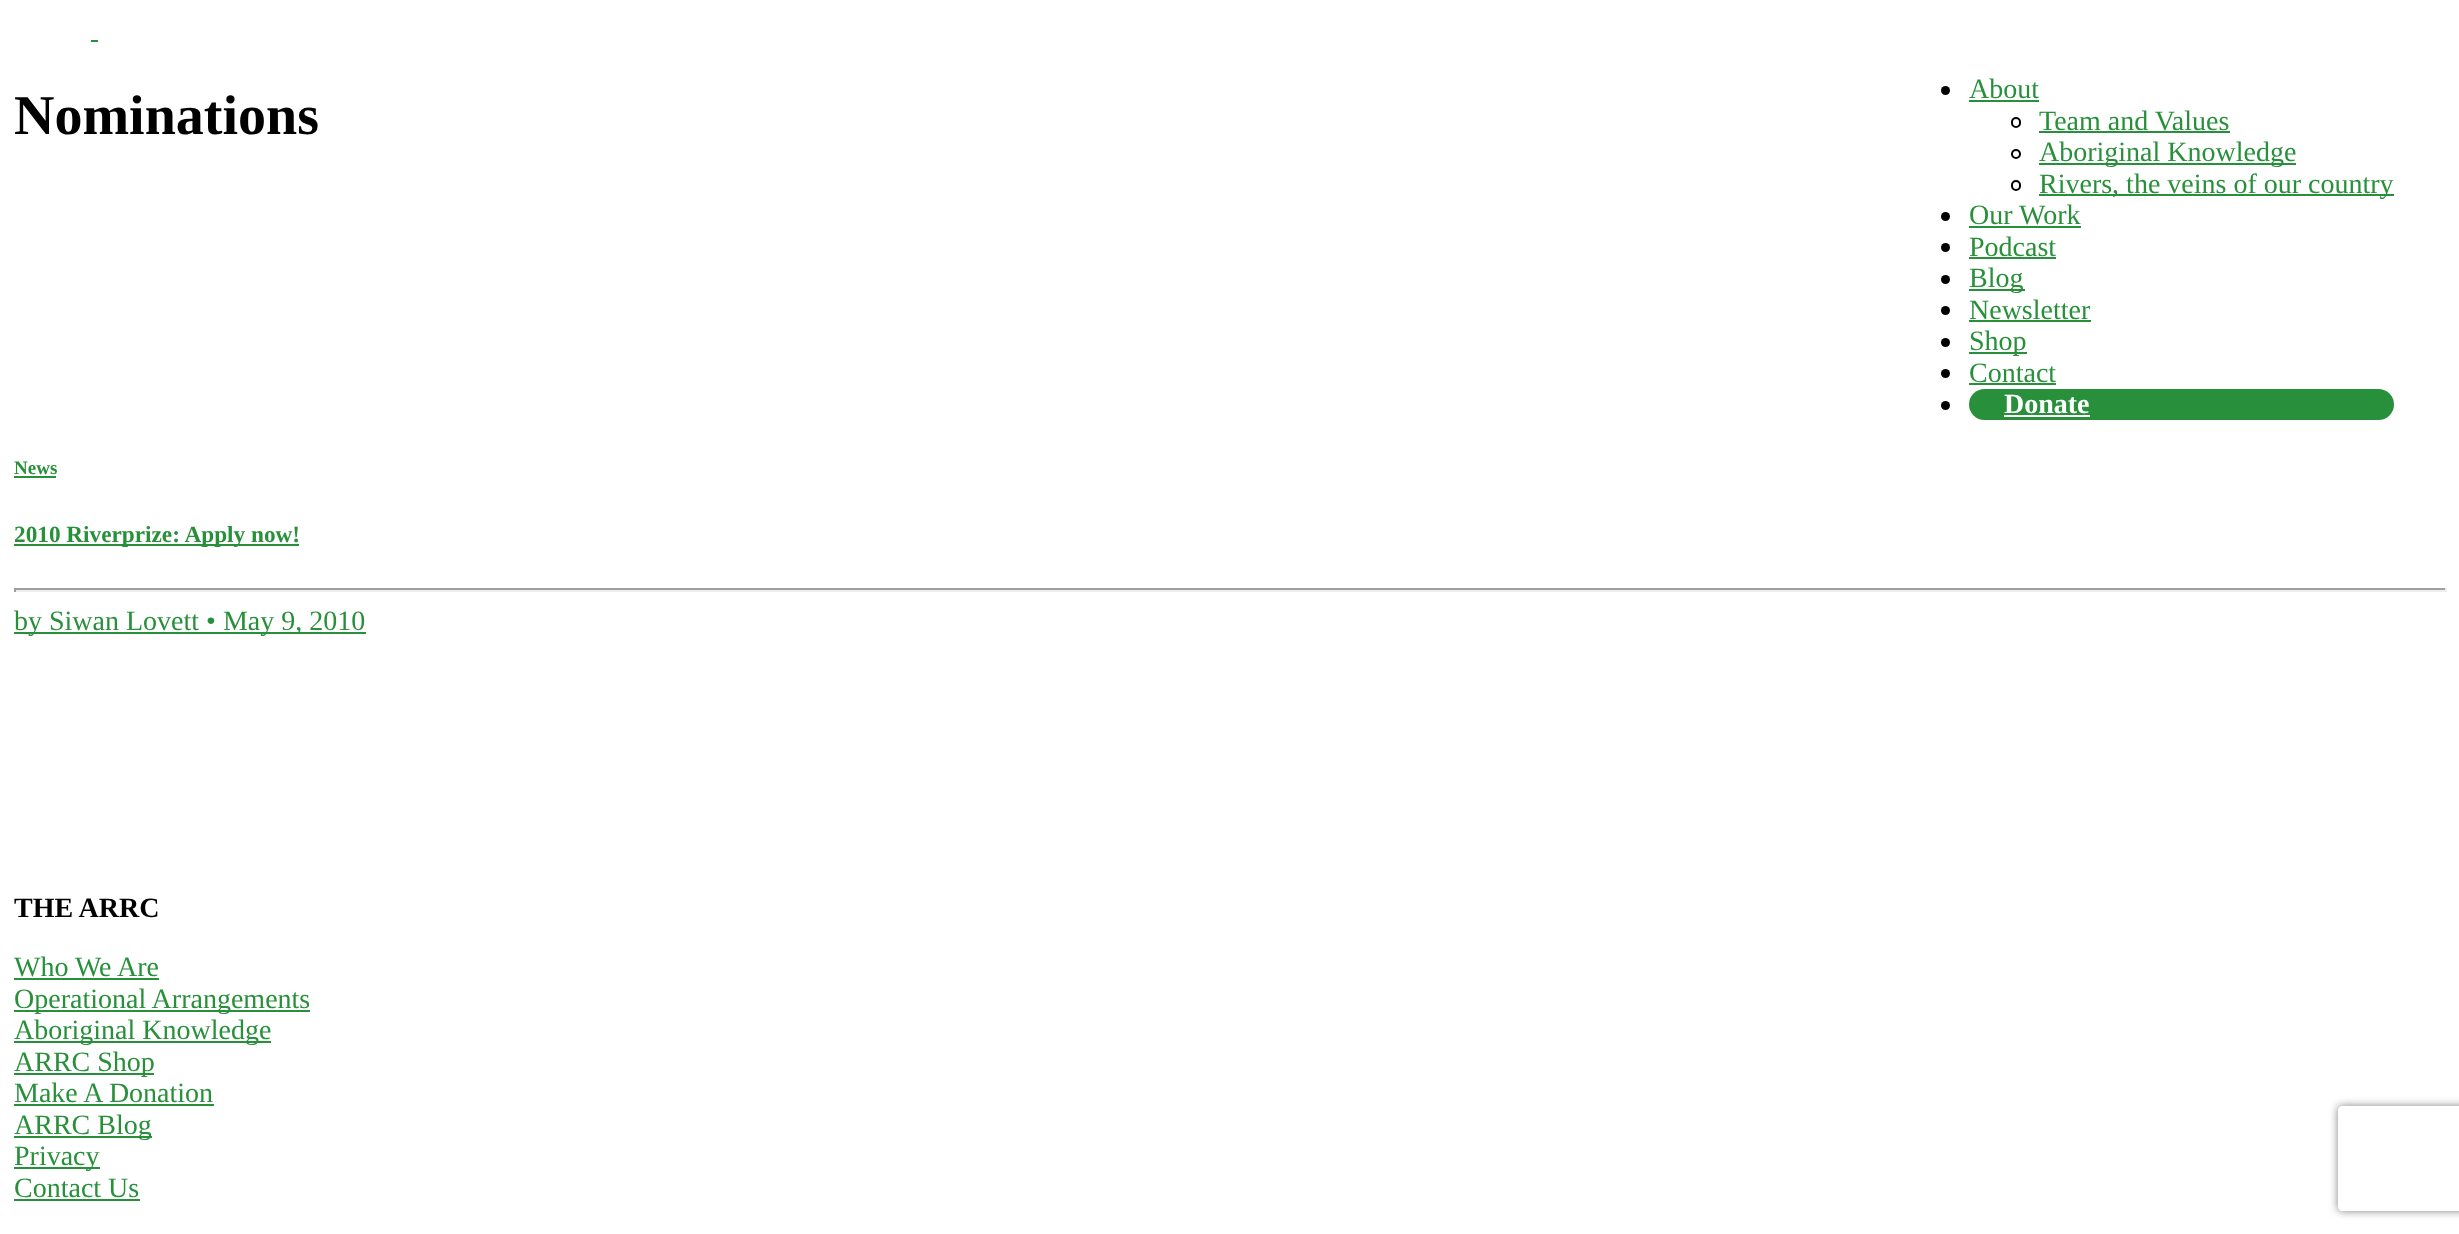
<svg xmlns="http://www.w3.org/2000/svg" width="2459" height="1234">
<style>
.a{font:bold 56px Liberation Serif;fill:#000}
.b{font:bold 19px Liberation Serif;fill:#28903b}
.c{font:bold 23.25px Liberation Serif;fill:#28903b}
.d{font:28px Liberation Serif;fill:#28903b}
.e{font:bold 28px Liberation Serif;fill:#000}
.f{font:bold 28px Liberation Serif;fill:#fff}
</style>
<defs>
<clipPath id="clip1"><path d="M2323 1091h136v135h-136zm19 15h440c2 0 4 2 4 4v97c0 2-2 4-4 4h-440c-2 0-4-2-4-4v-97c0-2 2-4 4-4z" clip-rule="evenodd"/></clipPath>
</defs>
<rect width="100%" height="100%" fill="#fff"/>
<path fill="#28903b" d="M14 476h42v2H14z"/>
<path fill="#28903b" d="M14 544h285v2H14z"/>
<path fill="#9f9f9f" d="M14 588h2433v2H14z"/>
<path fill="#eee" d="M2445 588h2v4H2445z"/>
<path fill="#eee" d="M14 590h2433v2H14z"/>
<path fill="#9f9f9f" d="M14 588h2v4H14z"/>
<path fill="#28903b" d="M14 632h352v2H14z"/>
<path fill="#28903b" d="M14 978h145v2H14z"/>
<path fill="#28903b" d="M14 1010h296v2H14z"/>
<path fill="#28903b" d="M14 1041h257v2H14z"/>
<path fill="#28903b" d="M14 1073h140v2H14z"/>
<path fill="#28903b" d="M14 1104h200v2H14z"/>
<path fill="#28903b" d="M14 1136h138v2H14z"/>
<path fill="#28903b" d="M14 1167h86v2H14z"/>
<path fill="#28903b" d="M14 1199h126v2H14z"/>
<path fill="#28903b" d="M91 40h7v2H91z"/>
<circle fill="#000" cx="1945.5" cy="90.5" r="4.5"/>
<path fill="#28903b" d="M1969 100h70v2H1969z"/>
<rect fill="none" stroke="#000" stroke-width="2" x="2012" y="118" width="8" height="9" rx="4"/>
<path fill="#28903b" d="M2039 131h191v2H2039z"/>
<circle fill="none" stroke="#000" stroke-width="2" cx="2016" cy="154" r="4"/>
<path fill="#28903b" d="M2039 163h257v2H2039z"/>
<rect fill="none" stroke="#000" stroke-width="2" x="2012" y="181" width="8" height="9" rx="4"/>
<path fill="#28903b" d="M2039 194h355v2H2039z"/>
<circle fill="#000" cx="1945.5" cy="216.5" r="4.5"/>
<path fill="#28903b" d="M1969 226h112v2H1969z"/>
<circle fill="#000" cx="1945.5" cy="247.5" r="4.5"/>
<path fill="#28903b" d="M1969 257h87v2H1969z"/>
<circle fill="#000" cx="1945.5" cy="279.5" r="4.5"/>
<path fill="#28903b" d="M1969 289h56v2H1969z"/>
<circle fill="#000" cx="1945.5" cy="310.5" r="4.5"/>
<path fill="#28903b" d="M1969 320h122v2H1969z"/>
<circle fill="#000" cx="1945.5" cy="342.5" r="4.5"/>
<path fill="#28903b" d="M1969 352h58v2H1969z"/>
<circle fill="#000" cx="1945.5" cy="373.5" r="4.5"/>
<path fill="#28903b" d="M1969 383h87v2H1969z"/>
<rect fill="#28903b" x="1969" y="389" width="425" height="31" rx="15.5"/>
<circle fill="#000" cx="1945.5" cy="405.5" r="4.5"/>
<path fill="#fff" d="M2004 415h86v2H2004z"/>
<g clip-path="url(#clip1)">
<rect fill="#808080" filter="blur(4.5px)" x="2338" y="1106" width="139" height="105" rx="4"/>
</g>
<text class="a" x="14" y="134">Nominations</text>
<text class="b" x="14" y="474">News</text>
<text class="c" x="14" y="542">2010 Riverprize: Apply now!</text>
<text class="d" x="14" y="630">by Siwan Lovett • May 9, 2010</text>
<text class="e" x="14" y="917">THE ARRC</text>
<text class="d" x="14" y="976">Who We Are</text>
<text class="d" x="14" y="1008">Operational Arrangements</text>
<text class="d" x="14" y="1039">Aboriginal Knowledge</text>
<text class="d" x="14" y="1071">ARRC Shop</text>
<text class="d" x="14" y="1102">Make A Donation</text>
<text class="d" x="14" y="1134">ARRC Blog</text>
<text class="d" x="14" y="1165">Privacy</text>
<text class="d" x="14" y="1197">Contact Us</text>
<text class="d" x="1969" y="98">About</text>
<text class="d" x="2039" y="130">Team and Values</text>
<text class="d" x="2039" y="161">Aboriginal Knowledge</text>
<text class="d" x="2039" y="193">Rivers, the veins of our country</text>
<text class="d" x="1969" y="224">Our Work</text>
<text class="d" x="1969" y="256">Podcast</text>
<text class="d" x="1969" y="287">Blog</text>
<text class="d" x="1969" y="319">Newsletter</text>
<text class="d" x="1969" y="350">Shop</text>
<text class="d" x="1969" y="382">Contact</text>
<text class="f" x="2004" y="413">Donate</text>
</svg>
